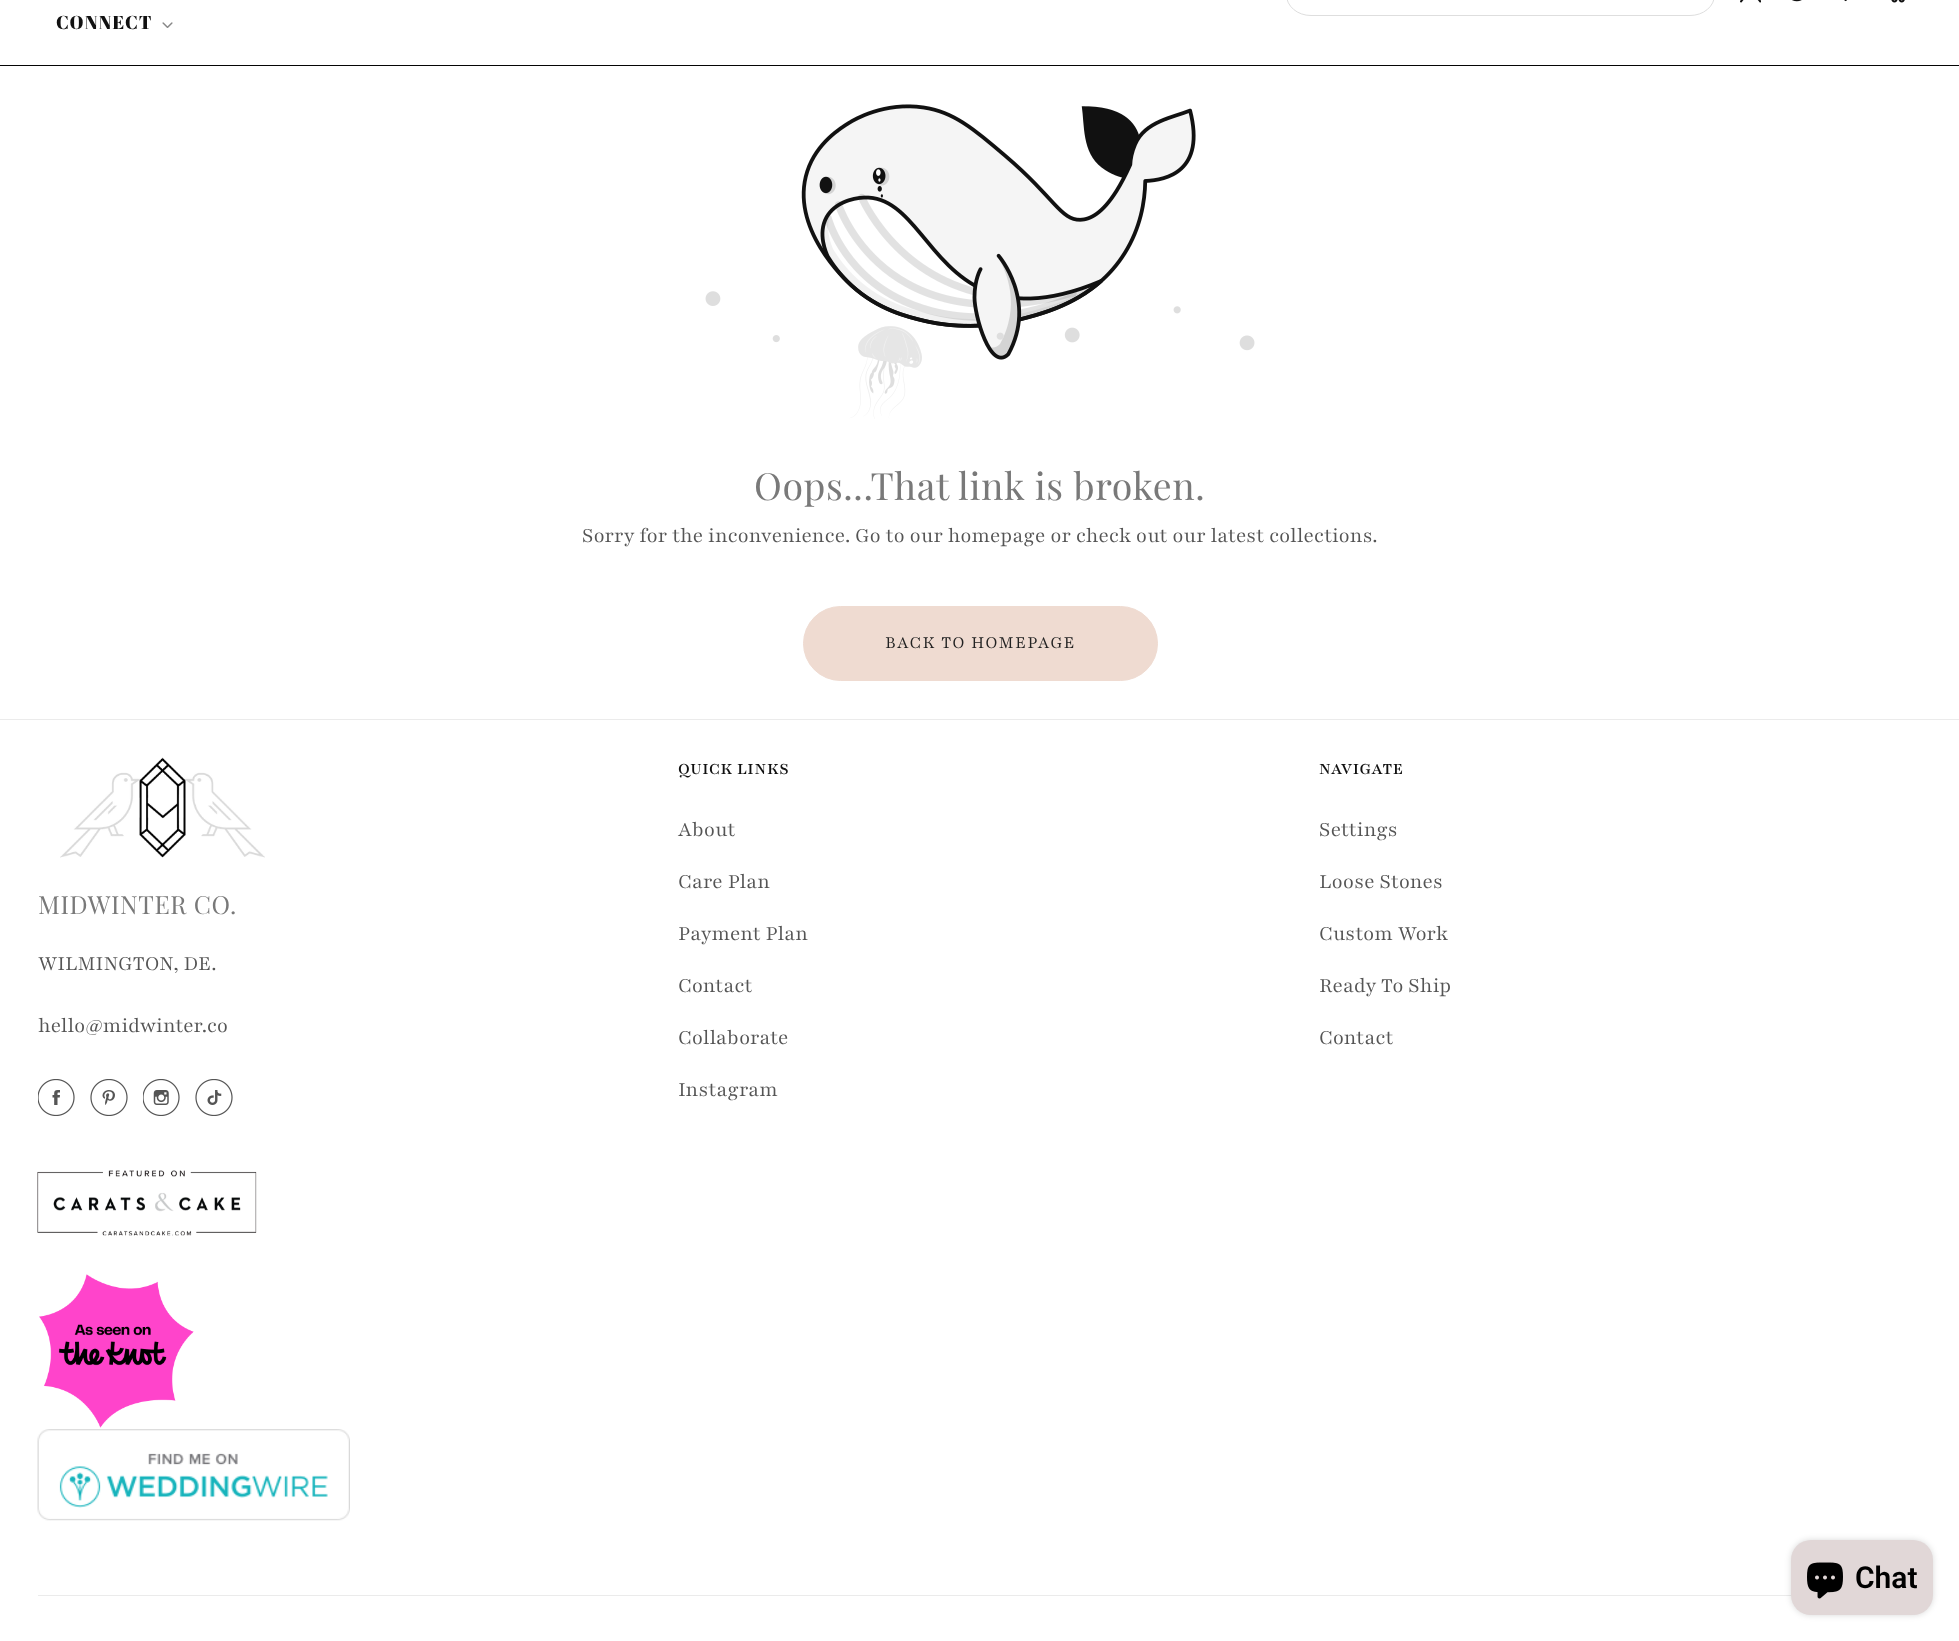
<svg xmlns="http://www.w3.org/2000/svg" width="1959" height="1641">
<style>
.a{font:18.75px Abril Fatface;letter-spacing:1.25px;fill:#111}
.b{font:37.5px Playfair Display;letter-spacing:0.6px;fill:#797979}
.c{font:300 22.5px 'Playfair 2';fill:#555}
.d{font:300 18.75px Playfair;letter-spacing:1.25px;fill:#222}
.e{font:25px Playfair Display;letter-spacing:0.6px;fill:#797979}
.f{font:600 17.5px Playfair;letter-spacing:0.6px;fill:#111}
.g{font:600 30px Roboto;fill:#000}
</style>
<rect width="100%" height="100%" fill="#fff"/>
<path fill="#050505" d="M0 65h1959v1H0z"/>
<rect fill="none" stroke="#dedede" x="1286.5" y="-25.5" width="428" height="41" rx="24.5"/>
<image href="1.png" x="1740" y="0" width="21" height="3"/>
<image href="2.png" x="1792" y="0" width="10" height="2"/>
<image href="3.png" x="1844" y="0" width="3" height="2"/>
<image href="4.png" x="1891" y="0" width="14" height="3"/>
<image href="5.png" x="162" y="22" width="11" height="6"/>
<image href="6.png" x="705" y="104" width="550" height="315"/>
<rect fill="#efdbd1" stroke="#efdbd1" x="803.5" y="606.5" width="354" height="74" rx="37"/>
<path fill="#ebebeb" d="M0 719h1959v1H0z"/>
<image href="7.png" x="60" y="757" width="205" height="101"/>
<image href="8.png" x="38" y="1079" width="37" height="37"/>
<image href="9.png" x="90" y="1079" width="38" height="37"/>
<image href="10.png" x="143" y="1079" width="37" height="37"/>
<image href="11.png" x="195" y="1079" width="38" height="37"/>
<image href="12.png" x="37" y="1170" width="220" height="66"/>
<image href="13.png" x="39" y="1274" width="155" height="154"/>
<image href="14.png" x="37" y="1429" width="313" height="92"/>
<path fill="#ebebeb" d="M38 1595h1754v1H38z"/>
<rect fill="#00000026" filter="blur(3px)" x="1791" y="1540" width="142" height="75" rx="20"/>
<rect fill="#e1d7d7" x="1791" y="1540" width="142" height="75" rx="20"/>
<image href="15.png" x="1807" y="1562" width="36" height="37"/>
<text class="a" x="56" y="29">CONNECT</text>
<text class="b" x="754" y="500">Oops...That link is broken.</text>
<text class="c" x="582" y="542">Sorry for the inconvenience. Go to our homepage or check out our latest collections.</text>
<text class="d" x="885" y="648">BACK TO HOMEPAGE</text>
<text class="e" x="38" y="914">MIDWINTER CO.</text>
<text class="c" x="38" y="970">WILMINGTON, DE.</text>
<text class="c" x="38" y="1032">hello@midwinter.co</text>
<text class="f" x="678" y="774">QUICK LINKS</text>
<text class="c" x="678" y="836">About</text>
<text class="c" x="678" y="888">Care Plan</text>
<text class="c" x="678" y="940">Payment Plan</text>
<text class="c" x="678" y="992">Contact</text>
<text class="c" x="678" y="1044">Collaborate</text>
<text class="c" x="678" y="1096">Instagram</text>
<text class="f" x="1319" y="774">NAVIGATE</text>
<text class="c" x="1319" y="836">Settings</text>
<text class="c" x="1319" y="888">Loose Stones</text>
<text class="c" x="1319" y="940">Custom Work</text>
<text class="c" x="1319" y="992">Ready To Ship</text>
<text class="c" x="1319" y="1044">Contact</text>
<text class="g" x="1855" y="1588">Chat</text>
</svg>
